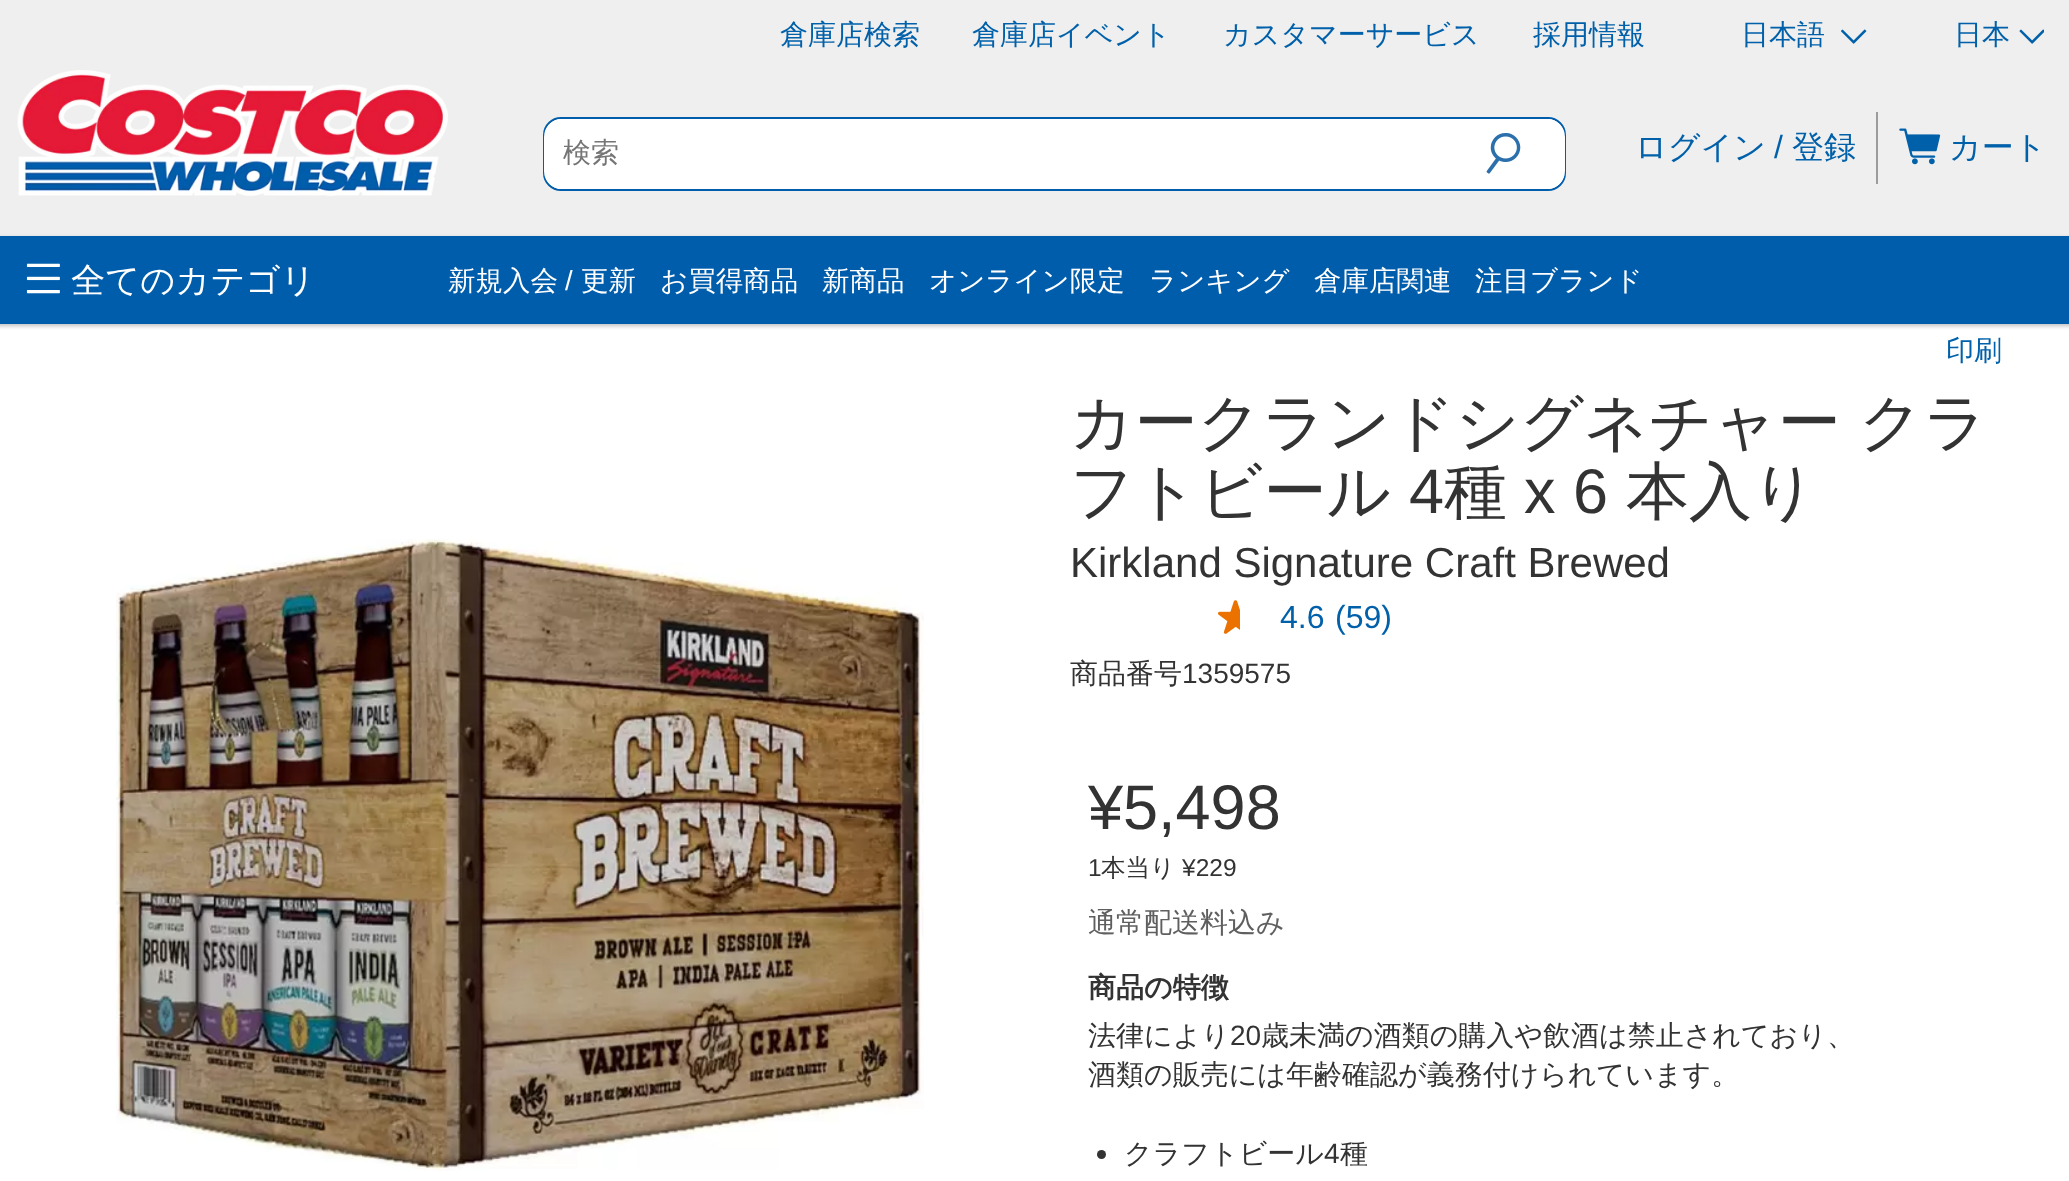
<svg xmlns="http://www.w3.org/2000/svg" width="2069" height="1181">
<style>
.a{font:500 28px WenQuanYi Zen Hei;fill:#0060a9}
.b{font:500 28px WenQuanYi Zen Hei;fill:#757575}
.c{font:500 32px WenQuanYi Zen Hei;fill:#0060a9}
.d{font:32px Liberation Sans;fill:#0060a9}
.e{font:500 34.25px WenQuanYi Zen Hei;fill:#fff}
.f{font:500 27.5px WenQuanYi Zen Hei;fill:#fff}
.g{font:27.5px Liberation Sans;fill:#fff}
.h{font:500 63px WenQuanYi Zen Hei;fill:#333}
.i{font:63px Liberation Sans;fill:#333}
.j{font:42px Liberation Sans;fill:#333}
.k{font:500 28px WenQuanYi Zen Hei;fill:#333}
.l{font:28px Liberation Sans;fill:#333}
.m{font:24.5px Liberation Sans;fill:#333}
.n{font:500 24.5px WenQuanYi Zen Hei;fill:#333}
.o{font:500 28px WenQuanYi Zen Hei;fill:#5f5f5f}
.p{font:bold 28px WenQuanYi Zen Hei;fill:#333}
</style>
<rect width="100%" height="100%" fill="#fff"/>
<path fill="#efefef" d="M0 0h2069v236H0z"/>
<image href="1.png" x="1841" y="29" width="26" height="15"/>
<image href="2.png" x="2019" y="29" width="25" height="15"/>
<image href="3.png" x="17" y="70" width="431" height="126"/>
<rect fill="#fff" stroke="#005dab" stroke-width="2" x="544" y="118" width="1021" height="72" rx="17"/>
<rect fill="#fff" x="544" y="119" width="942" height="70" rx="18"/>
<rect fill="#fff" x="1486" y="119" width="79" height="70" rx="18"/>
<image href="4.png" x="1486" y="133" width="35" height="41"/>
<path fill="#9c9c9c" d="M1876 112h2v72H1876z"/>
<image href="5.png" x="1899" y="128" width="42" height="37"/>
<path fill="#00000040" filter="blur(2px)" d="M-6 238h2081v88H-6z"/>
<path fill="#005dab" d="M0 236h2069v88H0z"/>
<image href="6.png" x="26" y="263" width="34" height="31"/>
<image href="7.png" x="116" y="539" width="808" height="632"/>
<image href="8.png" x="1218" y="600" width="22" height="34"/>
<circle fill="#333" cx="1101.5" cy="1154.5" r="4.5"/>
<text class="a" x="780" y="44">倉庫店検索</text>
<text class="a" x="972" y="44">倉庫店イベント</text>
<text class="a" x="1223" y="44">カスタマーサービス</text>
<text class="a" x="1533" y="44">採用情報</text>
<text class="a" x="1741" y="44">日本語</text>
<text class="a" x="1954" y="44">日本</text>
<text class="b" x="563" y="162">検索</text>
<text class="c" x="1635" y="158">ログイン</text>
<text class="d" x="1774" y="158">/</text>
<text class="c" x="1792" y="158">登録</text>
<text class="c" x="1949" y="158">カート</text>
<text class="e" x="71" y="292">全てのカテゴリ</text>
<text class="f" x="448" y="290">新規入会</text>
<text class="g" x="565" y="290">/</text>
<text class="f" x="581" y="290">更新</text>
<text class="f" x="660" y="290">お買得商品</text>
<text class="f" x="822" y="290">新商品</text>
<text class="f" x="929" y="290">オンライン限定</text>
<text class="f" x="1149" y="290">ランキング</text>
<text class="f" x="1314" y="290">倉庫店関連</text>
<text class="f" x="1475" y="290">注目ブランド</text>
<text class="a" x="1946" y="360">印刷</text>
<text class="h" x="1070" y="444" word-spacing="-1">カークランドシグネチャー クラ</text>
<text class="h" x="1070" y="513">フトビール</text>
<text class="i" x="1409" y="513">4</text>
<text class="h" x="1444" y="513">種</text>
<text class="i" x="1524" y="513">x 6</text>
<text class="h" x="1626" y="513">本入り</text>
<text class="j" x="1070" y="577">Kirkland Signature Craft Brewed</text>
<text class="d" x="1280" y="628">4.6</text>
<text class="d" x="1335" y="628">(59)</text>
<text class="k" x="1070" y="683">商品番号</text>
<text class="l" x="1182" y="683">1359575</text>
<text class="i" x="1088" y="829">¥5,498</text>
<text class="m" x="1088" y="876">1</text>
<text class="n" x="1101" y="876">本当り</text>
<text class="m" x="1182" y="876">¥229</text>
<text class="o" x="1088" y="932">通常配送料込み</text>
<text class="p" x="1088" y="997">商品の特徴</text>
<text class="k" x="1088" y="1045">法律により</text>
<text class="l" x="1230" y="1045">20</text>
<text class="k" x="1261" y="1045">歳未満の酒類の購入や飲酒は禁止されており、</text>
<text class="k" x="1088" y="1084">酒類の販売には年齢確認が義務付けられています。</text>
<text class="k" x="1124" y="1163">クラフトビール</text>
<text class="l" x="1324" y="1163">4</text>
<text class="k" x="1340" y="1163">種</text>
</svg>
